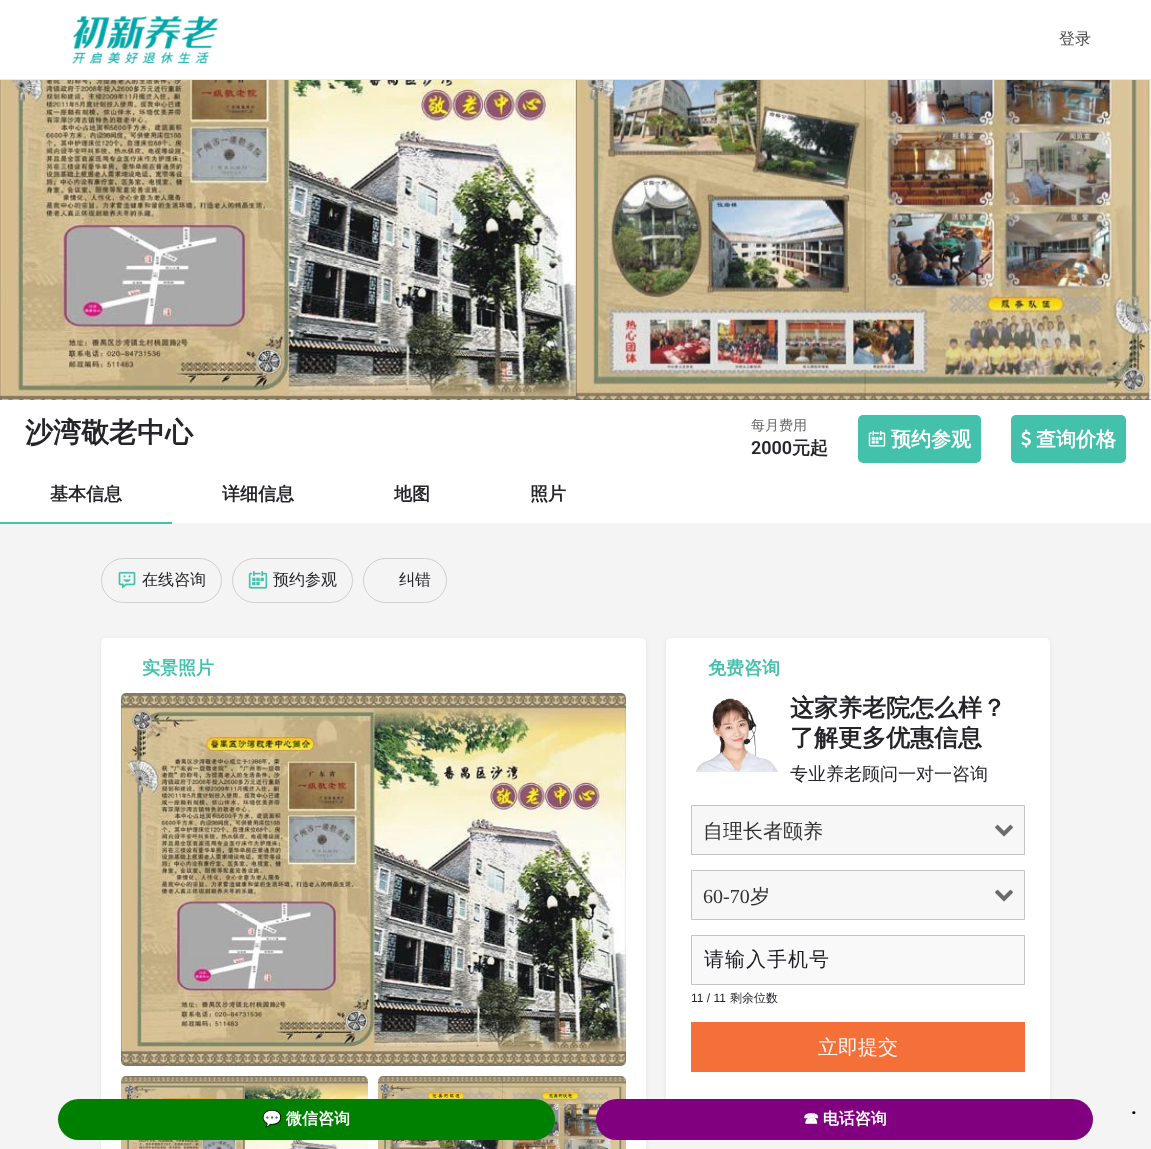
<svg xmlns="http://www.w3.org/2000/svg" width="1151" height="1149">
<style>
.a{font:500 16px WenQuanYi Zen Hei;fill:#484848}
.b{font:bold 28px WenQuanYi Zen Hei;fill:#242429}
.c{font:500 14px WenQuanYi Zen Hei;fill:#666669}
.d{font:600 18px Roboto;fill:#242429}
.e{font:bold 18px WenQuanYi Zen Hei;fill:#242429}
.f{font:bold 20px WenQuanYi Zen Hei;fill:#fff}
.g{font:500 16px WenQuanYi Zen Hei;fill:#242429}
.h{font:bold 18px WenQuanYi Zen Hei;fill:#43c1aa}
.i{font:bold 24px WenQuanYi Zen Hei;fill:#242429}
.j{font:500 18px WenQuanYi Zen Hei;fill:#242429}
.k{font:500 20px WenQuanYi Zen Hei;fill:#333}
.l{font:20px Liberation Serif;fill:#333}
.m{font:500 20px WenQuanYi Zen Hei;letter-spacing:1px;fill:#1d1d23}
.n{font:12px Liberation Sans;fill:#242429}
.o{font:500 12px WenQuanYi Zen Hei;fill:#242429}
.p{font:500 20px WenQuanYi Zen Hei;fill:#f7f7f7}
.q{font:bold 16px Noto Color Emoji;fill:#fff}
.r{font:bold 16px WenQuanYi Zen Hei;fill:#fff}
.s{font:bold 20px Roboto;fill:#000}
</style>
<rect width="100%" height="100%" fill="#f4f4f4"/>
<path fill="#fff" d="M0 0h1151v79H0z"/>
<path fill="#ebebeb" d="M0 79h1151v1H0z"/>
<image href="1.png" x="72" y="15" width="147" height="49"/>
<path fill="#212226" d="M576 80h575v320H576z"/>
<image href="2.png" x="0" y="80" width="576" height="320"/>
<image href="3.png" x="575" y="80" width="576" height="320"/>
<path fill="#fff" d="M0 400h1151v123H0z"/>
<rect fill="#43c1aa" x="858" y="415" width="123" height="48" rx="5"/>
<image href="4.png" x="868" y="430" width="18" height="17"/>
<rect fill="#43c1aa" x="1011" y="415" width="115" height="48" rx="5"/>
<image href="5.png" x="1021" y="429" width="10" height="19"/>
<path fill="#43c1aa" d="M0 522h172v2H0z"/>
<rect fill="none" stroke="#cfcfcf" x="101.5" y="558.5" width="120" height="44" rx="22"/>
<image href="6.png" x="118" y="571" width="18" height="18"/>
<rect fill="none" stroke="#cfcfcf" x="232.5" y="558.5" width="120" height="44" rx="22"/>
<image href="7.png" x="248" y="571" width="20" height="18"/>
<rect fill="none" stroke="#cfcfcf" x="363.5" y="558.5" width="83" height="44" rx="22"/>
<rect fill="#00000012" filter="blur(2px)" x="101" y="639" width="545" height="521" rx="5"/>
<rect fill="#fff" x="101" y="638" width="545" height="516" rx="5"/>
<image href="8.png" x="121" y="693" width="505" height="373"/>
<image href="9.png" x="121" y="1076" width="247" height="73"/>
<image href="10.png" x="378" y="1076" width="248" height="73"/>
<rect fill="#00000012" filter="blur(2px)" x="666" y="639" width="384" height="474" rx="5"/>
<rect fill="#fff" x="666" y="638" width="384" height="474" rx="5"/>
<image href="11.png" x="696" y="698" width="82" height="74"/>
<path fill="#f7f7f7" stroke="#c4c4c4" d="M691.5 805.5h333v49H691.5z"/>
<image href="12.png" x="995" y="824" width="18" height="13"/>
<path fill="#f7f7f7" stroke="#c4c4c4" d="M691.5 870.5h333v49H691.5z"/>
<image href="12.png" x="995" y="889" width="18" height="13"/>
<path fill="#f9f9f9" stroke="#c4c4c4" d="M691.5 935.5h333v49H691.5z"/>
<path fill="#f47038" d="M691 1022h334v50H691z"/>
<rect fill="#008000" x="58" y="1099" width="497" height="41" rx="20.5"/>
<rect fill="#800080" x="596" y="1099" width="497" height="41" rx="20.5"/>
<text class="a" x="1059" y="44">登录</text>
<text class="b" x="25" y="442">沙湾敬老中心</text>
<text class="c" x="751" y="430">每月费用</text>
<text class="d" x="751" y="454">2000</text>
<text class="e" x="792" y="454">元起</text>
<text class="f" x="891" y="446">预约参观</text>
<text class="f" x="1036" y="446">查询价格</text>
<text class="e" x="50" y="500">基本信息</text>
<text class="e" x="222" y="500">详细信息</text>
<text class="e" x="394" y="500">地图</text>
<text class="e" x="530" y="500">照片</text>
<text class="g" x="142" y="585">在线咨询</text>
<text class="g" x="273" y="585">预约参观</text>
<text class="g" x="399" y="585">纠错</text>
<text class="h" x="142" y="674">实景照片</text>
<text class="h" x="708" y="674">免费咨询</text>
<text class="i" x="790" y="716">这家养老院怎么样？</text>
<text class="i" x="790" y="746">了解更多优惠信息</text>
<text class="j" x="790" y="780">专业养老顾问一对一咨询</text>
<text class="k" x="703" y="838">自理长者颐养</text>
<text class="l" x="703" y="903">60-70</text>
<text class="k" x="750" y="903">岁</text>
<text class="m" x="704" y="966">请输入手机号</text>
<text class="n" x="691" y="1002">11 / 11</text>
<text class="o" x="730" y="1002">剩余位数</text>
<text class="p" x="818" y="1054">立即提交</text>
<text class="q" x="262" y="1124">💬</text>
<text class="r" x="286" y="1124">微信咨询</text>
<text class="r" x="803" y="1124" word-spacing="-1">☎ 电话咨询</text>
<text class="s" x="1131" y="1114">.</text>
</svg>
